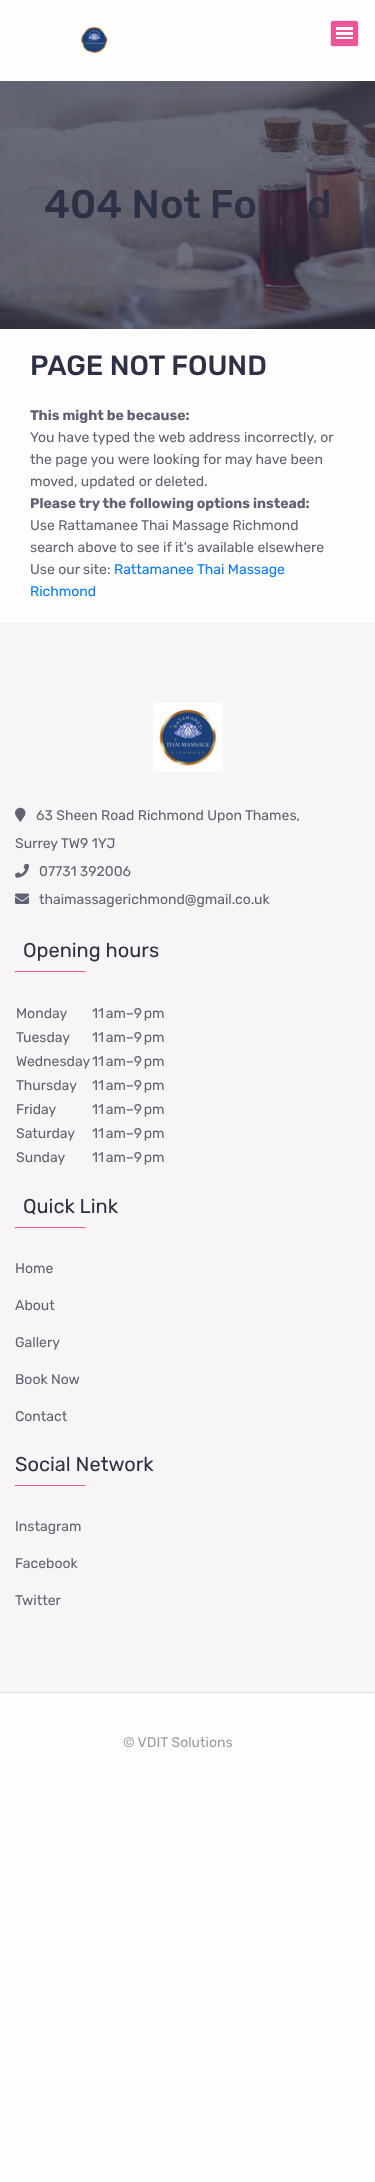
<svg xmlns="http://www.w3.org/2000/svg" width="375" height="2182">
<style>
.a{font:500 40px Rubik;fill:#2e3146}
.b{font:500 28px Rubik;fill:#2e3146}
.c{font:bold 14px Rubik;fill:#5f6271}
.d{font:14px Rubik;fill:#5f6271}
.e{font:14px Rubik;fill:#027bfe}
.f{font:20px Rubik;fill:#2e3146}
.g{font:14px Rubik;fill:#9d9b9c}
</style>
<rect width="100%" height="100%" fill="#fffdfe"/>
<image href="1.png" x="81" y="27" width="27" height="26"/>
<rect fill="#ec5598" stroke="#fffdfe" stroke-width="0.8" x="330.4" y="20.4" width="28.2" height="26.2" rx="2.6"/>
<path fill="#fffdfe" d="M336 27h17v3H336z"/>
<path fill="#fffdfe" d="M336 32h17v3H336z"/>
<path fill="#fffdfe" d="M336 37h17v2H336z"/>
<image href="2.png" x="0" y="81" width="375" height="248"/>
<path fill="#2e313c26" filter="blur(0.5px)" d="M0 624h375v1069H0z"/>
<path fill="#f7f5f6" d="M0 623h375v1069H0z"/>
<image href="3.png" x="153" y="703" width="70" height="69"/>
<image href="4.png" x="15" y="807" width="11" height="15"/>
<image href="5.png" x="15" y="863" width="14" height="15"/>
<image href="6.png" x="15" y="893" width="14" height="11"/>
<path fill="#ec5598" d="M15 971h70v1H15z"/>
<path fill="#ec5598" d="M15 1227h70v1H15z"/>
<path fill="#ec5598" d="M15 1485h70v1H15z"/>
<text class="a" x="44" y="218">404 Not Fo</text>
<text class="a" x="307" y="218">d</text>
<text class="b" x="30" y="375">PAGE NOT FOUND</text>
<text class="c" x="30" y="420">This might be because:</text>
<text class="d" x="30" y="442">You have typed the web address incorrectly, or</text>
<text class="d" x="30" y="464">the page you were looking for may have been</text>
<text class="d" x="30" y="486">moved, updated or deleted.</text>
<text class="c" x="30" y="508">Please try the following options instead:</text>
<text class="d" x="30" y="530">Use Rattamanee Thai Massage Richmond</text>
<text class="d" x="30" y="552">search above to see if it's available elsewhere</text>
<text class="d" x="30" y="574">Use our site:</text>
<text class="e" x="114" y="574">Rattamanee Thai Massage</text>
<text class="e" x="30" y="596">Richmond</text>
<text class="d" x="36" y="820">63 Sheen Road Richmond Upon Thames,</text>
<text class="d" x="15" y="848">Surrey TW9 1YJ</text>
<text class="d" x="39" y="876">07731 392006</text>
<text class="d" x="39" y="904">thaimassagerichmond@gmail.co.uk</text>
<text class="f" x="23" y="957">Opening hours</text>
<text class="d" x="16" y="1018">Monday</text>
<text class="d" x="92" y="1018">11 am–9 pm</text>
<text class="d" x="16" y="1042">Tuesday</text>
<text class="d" x="92" y="1042">11 am–9 pm</text>
<text class="d" x="16" y="1066">Wednesday</text>
<text class="d" x="92" y="1066">11 am–9 pm</text>
<text class="d" x="16" y="1090">Thursday</text>
<text class="d" x="92" y="1090">11 am–9 pm</text>
<text class="d" x="16" y="1114">Friday</text>
<text class="d" x="92" y="1114">11 am–9 pm</text>
<text class="d" x="16" y="1138">Saturday</text>
<text class="d" x="92" y="1138">11 am–9 pm</text>
<text class="d" x="16" y="1162">Sunday</text>
<text class="d" x="92" y="1162">11 am–9 pm</text>
<text class="f" x="23" y="1213">Quick Link</text>
<text class="d" x="15" y="1273">Home</text>
<text class="d" x="15" y="1310">About</text>
<text class="d" x="15" y="1347">Gallery</text>
<text class="d" x="15" y="1384">Book Now</text>
<text class="d" x="15" y="1421">Contact</text>
<text class="f" x="15" y="1471">Social Network</text>
<text class="d" x="15" y="1531">Instagram</text>
<text class="d" x="15" y="1568">Facebook</text>
<text class="d" x="15" y="1605">Twitter</text>
<text class="g" x="123" y="1747">© VDIT Solutions</text>
</svg>
